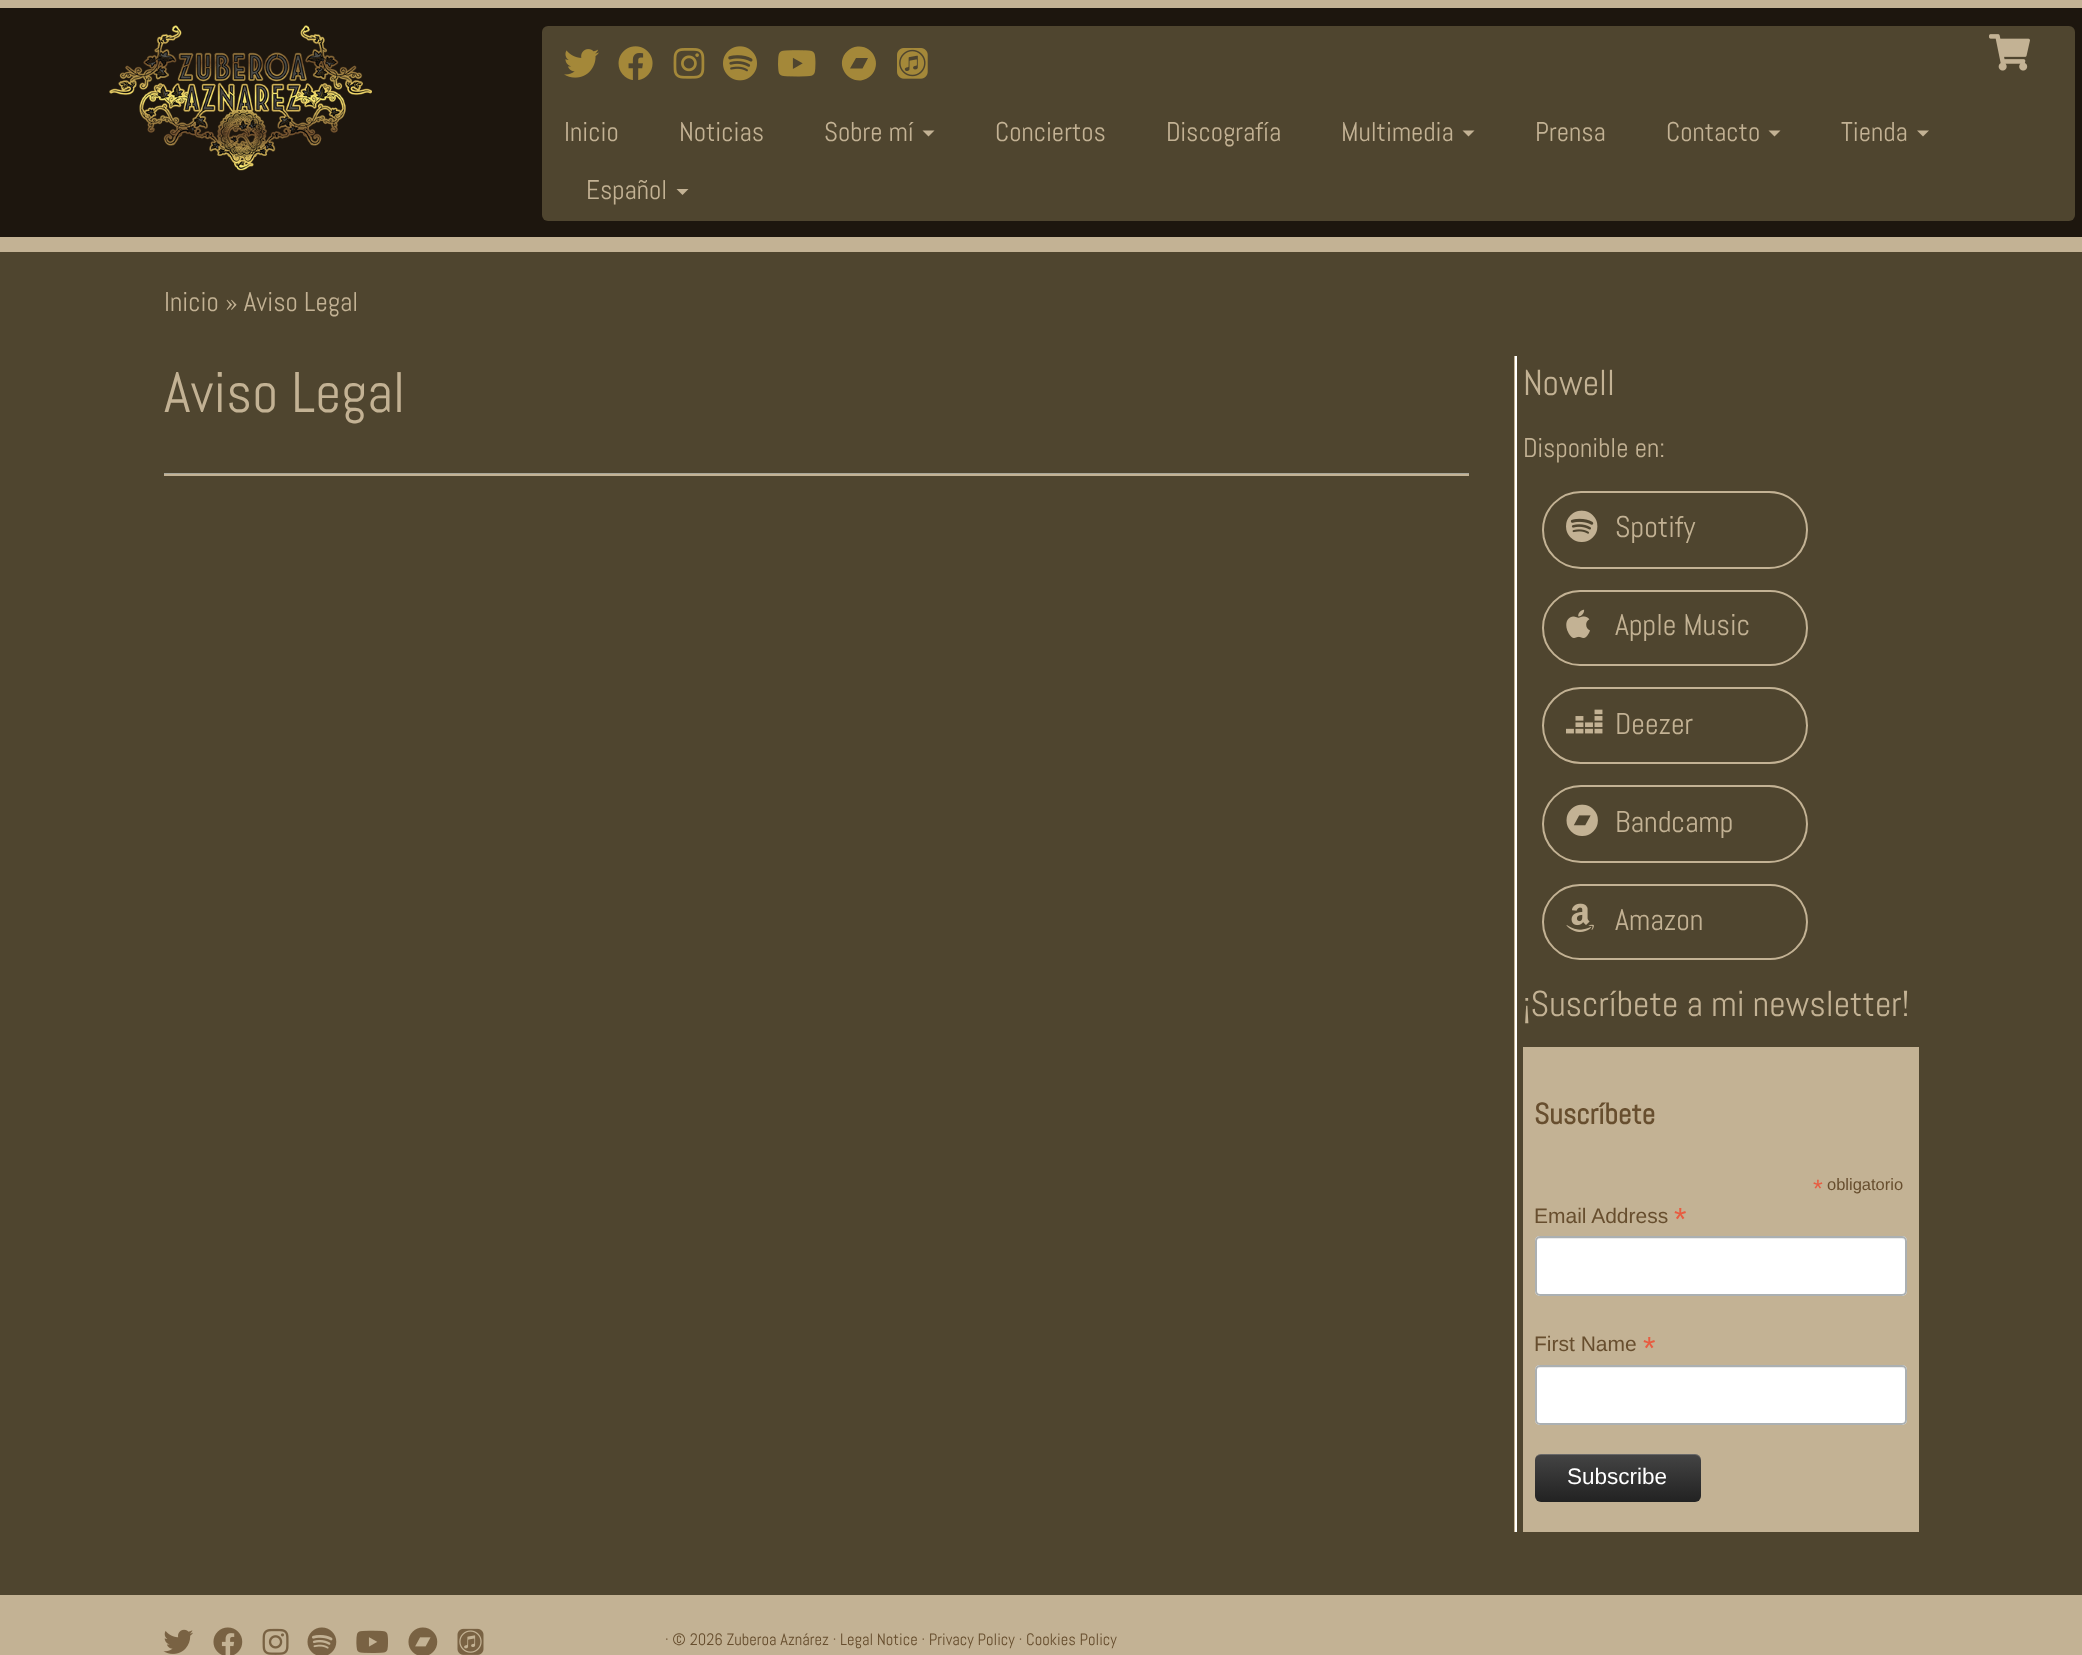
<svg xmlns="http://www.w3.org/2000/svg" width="2082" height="1655">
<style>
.a{font:27px Abel;fill:#c3b294}
.b{font:57px Abel;fill:#c3b294}
.c{font:36px Abel;fill:#c3b294}
.d{font:30px Abel;fill:#c3b294}
.e{font:bold 29.5px Abel;fill:#674e2e}
.f{font:25px Liberation Sans;fill:#e85c41}
.g{font:16.5px Liberation Sans;fill:#674e2e}
.h{font:21px Liberation Sans;fill:#674e2e}
.i{font:32px Liberation Sans;fill:#e85c41}
.j{font:22.5px Liberation Sans;fill:#fff}
.k{font:16.5px Abel;fill:#674e2e}
</style>
<defs>
<linearGradient id="g1" gradientUnits="userSpaceOnUse" x1="1618" y1="1454" x2="1618" y2="1502"><stop offset="0" stop-color="#444"/><stop offset="1" stop-color="#222"/></linearGradient>
</defs>
<rect width="100%" height="100%" fill="#4f452f"/>
<path fill="#1d160e" d="M0 8h2082v229H0z"/>
<path fill="#c3b294" d="M0 0h2082v8H0z"/>
<path fill="#c3b294" d="M0 237h2082v15H0z"/>
<image href="1.png" x="109" y="25" width="263" height="146"/>
<rect fill="#4f452f" x="542" y="26" width="1533" height="195" rx="6"/>
<image href="2.png" x="564" y="49" width="35" height="29"/>
<image href="3.png" x="618" y="46" width="35" height="34"/>
<image href="4.png" x="673" y="48" width="32" height="31"/>
<image href="5.png" x="723" y="46" width="34" height="35"/>
<image href="6.png" x="778" y="50" width="38" height="27"/>
<path fill="#a48839" d="M847 51.5c3-3 6.5-4.5 10.5-5c15.5-1.5 25 17.5 13.5 29c-2.5 2.5-6.5 4.5-10 5c-16 1-25.5-18-14-29zm15.5 17l5.5-10.5h-12l-6 10.5z"/>
<image href="7.png" x="897" y="48" width="31" height="31"/>
<image href="8.png" x="1989" y="34" width="41" height="37"/>
<path fill="#c3b294" d="M922.5 130.5h12l-6 6z"/>
<path fill="#c3b294" d="M1462.5 130.5h12l-6 6z"/>
<path fill="#c3b294" d="M1768.5 130.5h12l-6 6z"/>
<path fill="#c3b294" d="M1917 130.5h12l-6 6z"/>
<path fill="#c3b294" d="M676.5 189h12l-6 6z"/>
<path fill="#a6a599" d="M164 473h1305v1H164z"/>
<path fill="#c3b294" d="M164 474h1305v2H164z"/>
<path fill="#c3b294" d="M1514 356h1v1176H1514z"/>
<path fill="#fff" d="M1515 356h2v1176H1515z"/>
<rect fill="none" stroke="#c3b294" stroke-width="2" x="1543" y="492" width="264" height="76" rx="38"/>
<image href="9.png" x="1566" y="510" width="32" height="32"/>
<rect fill="none" stroke="#c3b294" stroke-width="2" x="1543" y="591" width="264" height="74" rx="37"/>
<image href="10.png" x="1566" y="609" width="24" height="29"/>
<rect fill="none" stroke="#c3b294" stroke-width="2" x="1543" y="688" width="264" height="75" rx="37.5"/>
<image href="11.png" x="1566" y="709" width="37" height="25"/>
<rect fill="none" stroke="#c3b294" stroke-width="2" x="1543" y="786" width="264" height="76" rx="38"/>
<image href="12.png" x="1566" y="804" width="32" height="32"/>
<rect fill="none" stroke="#c3b294" stroke-width="2" x="1543" y="885" width="264" height="74" rx="37"/>
<image href="13.png" x="1566" y="903" width="28" height="29"/>
<path fill="#c3b294" d="M1523 1047h396v485H1523z"/>
<rect fill="#fff" x="1535" y="1236" width="372" height="60" rx="5"/>
<path fill="#ececec" d="M1539 1239h363c2 0 3 1 3 3c0-2-1-4-3-4h-363l-2 1l-1 3c0-2 1-3 3-3z"/>
<rect fill="none" stroke="#abb0b2" stroke-width="2" x="1536" y="1237" width="370" height="58" rx="4"/>
<rect fill="#fff" x="1535" y="1365" width="372" height="60" rx="5"/>
<path fill="#ececec" d="M1539 1368h363c2 0 3 1 3 3c0-2-1-4-3-4h-363l-2 1l-1 3c0-2 1-3 3-3z"/>
<rect fill="none" stroke="#abb0b2" stroke-width="2" x="1536" y="1366" width="370" height="58" rx="4"/>
<rect fill="url(#g1)" x="1535" y="1454" width="166" height="48" rx="6"/>
<path fill="#ffffff33" d="M1540 1455h155c3 0 6 3 6 6v-1c0-3-3-6-6-6h-154c-2 0-4 1-5 3c1-1 3-2 4-2z"/>
<path fill="#c3b294" d="M0 1595h2082v60H0z"/>
<image href="14.png" x="163" y="1629" width="30" height="25"/>
<image href="15.png" x="213" y="1627" width="30" height="28"/>
<image href="16.png" x="262" y="1628" width="27" height="27"/>
<image href="17.png" x="307" y="1627" width="30" height="28"/>
<image href="18.png" x="356" y="1630" width="32" height="23"/>
<image href="19.png" x="408" y="1627" width="30" height="28"/>
<image href="20.png" x="457" y="1628" width="27" height="27"/>
<text class="a" x="564" y="141">Inicio</text>
<text class="a" x="679" y="141">Noticias</text>
<text class="a" x="824" y="141">Sobre mí</text>
<text class="a" x="995" y="141">Conciertos</text>
<text class="a" x="1166" y="141">Discografía</text>
<text class="a" x="1341" y="141">Multimedia</text>
<text class="a" x="1535" y="141">Prensa</text>
<text class="a" x="1666" y="141">Contacto</text>
<text class="a" x="1841" y="141">Tienda</text>
<text class="a" x="586" y="199">Español</text>
<text class="a" x="164" y="311">Inicio » Aviso Legal</text>
<text class="b" x="164" y="412">Aviso Legal</text>
<text class="c" x="1523" y="395">Nowell</text>
<text class="a" x="1523" y="457">Disponible en:</text>
<text class="d" x="1615" y="537">Spotify</text>
<text class="d" x="1615" y="635">Apple Music</text>
<text class="d" x="1615" y="734">Deezer</text>
<text class="d" x="1615" y="832">Bandcamp</text>
<text class="d" x="1615" y="930">Amazon</text>
<text class="c" x="1523" y="1016">¡Suscríbete a mi newsletter!</text>
<text class="e" x="1534" y="1124">Suscríbete</text>
<text class="f" x="1813" y="1197">*</text>
<text class="g" x="1827" y="1190">obligatorio</text>
<text class="h" x="1534" y="1223">Email Address</text>
<text class="i" x="1674" y="1230">*</text>
<text class="h" x="1534" y="1351">First Name</text>
<text class="i" x="1643" y="1359">*</text>
<text class="j" x="1567" y="1484">Subscribe</text>
<text class="k" x="665" y="1645">· © 2026 Zuberoa Aznárez · Legal Notice · Privacy Policy · Cookies Policy</text>
</svg>
